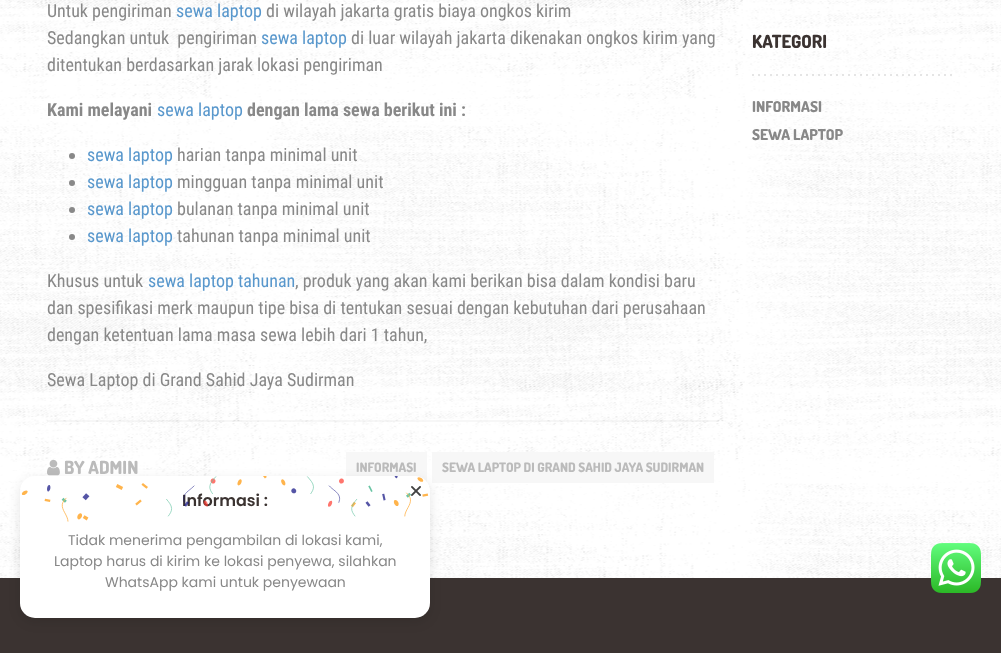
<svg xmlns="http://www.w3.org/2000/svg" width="1001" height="653">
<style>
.a{font:18px Roboto Condensed;fill:#888}
.b{font:18px Roboto Condensed;fill:#5897cc}
.c{font:bold 18px Roboto Condensed;fill:#888}
.d{font:800 18px Dosis;fill:#bbb}
.e{font:800 13px Dosis;fill:#bbb}
.f{font:800 18px Dosis;fill:#3b3331}
.g{font:800 15px Dosis;fill:#888}
.h{font:600 16px Poppins;fill:#3b3331}
.i{font:14px Poppins;fill:#888}
</style>
<rect width="100%" height="100%" fill="#fff"/>
<image href="1.png" x="0" y="0" width="1001" height="578"/>
<circle fill="#888" cx="72" cy="156" r="3"/>
<circle fill="#888" cx="72" cy="183" r="3"/>
<circle fill="#888" cx="72" cy="210" r="3"/>
<circle fill="#888" cx="72" cy="237" r="3"/>
<path fill="#00000008" d="M47 420h672v2H47z"/>
<image href="2.png" x="47" y="459" width="13" height="17"/>
<path fill="#f7f7f7" d="M346 452h81v30H346z"/>
<path fill="#f7f7f7" d="M432 452h282v31H432z"/>
<image href="3.png" x="752" y="74" width="200" height="2"/>
<path fill="#3b3331" d="M0 578h1001v75H0z"/>
<rect fill="#0000001a" filter="blur(6px)" x="20" y="480" width="410" height="142" rx="15"/>
<rect fill="#fff" x="20" y="476" width="410" height="142" rx="15"/>
<image href="6.png" x="931" y="543" width="50" height="50"/>
<text class="a" x="47" y="17">Untuk pengiriman</text>
<text class="b" x="176" y="17">sewa laptop</text>
<text class="a" x="266" y="17">di wilayah jakarta gratis biaya ongkos kirim</text>
<text class="a" xml:space="preserve" x="47" y="44">Sedangkan untuk  pengiriman</text>
<text class="b" x="261" y="44">sewa laptop</text>
<text class="a" x="351" y="44">di luar wilayah jakarta dikenakan ongkos kirim yang</text>
<text class="a" x="47" y="71">ditentukan berdasarkan jarak lokasi pengiriman</text>
<text class="c" x="47" y="116">Kami melayani</text>
<text class="b" x="157" y="116">sewa laptop</text>
<text class="c" x="247" y="116">dengan lama sewa berikut ini :</text>
<text class="b" x="87" y="161">sewa laptop</text>
<text class="a" x="177" y="161">harian tanpa minimal unit</text>
<text class="b" x="87" y="188">sewa laptop</text>
<text class="a" x="177" y="188">mingguan tanpa minimal unit</text>
<text class="b" x="87" y="215">sewa laptop</text>
<text class="a" x="177" y="215">bulanan tanpa minimal unit</text>
<text class="b" x="87" y="242">sewa laptop</text>
<text class="a" x="177" y="242">tahunan tanpa minimal unit</text>
<text class="a" x="47" y="287">Khusus untuk</text>
<text class="b" x="148" y="287">sewa laptop tahunan</text>
<text class="a" x="295" y="287">, produk yang akan kami berikan bisa dalam kondisi baru</text>
<text class="a" x="47" y="314">dan spesifikasi merk maupun tipe bisa di tentukan sesuai dengan kebutuhan dari perusahaan</text>
<text class="a" x="47" y="341">dengan ketentuan lama masa sewa lebih dari 1 tahun,</text>
<text class="a" x="47" y="386">Sewa Laptop di Grand Sahid Jaya Sudirman</text>
<text class="d" x="64" y="474">BY ADMIN</text>
<text class="e" x="356" y="472">INFORMASI</text>
<text class="e" x="442" y="472">SEWA LAPTOP DI GRAND SAHID JAYA SUDIRMAN</text>
<text class="f" x="752" y="48">KATEGORI</text>
<text class="g" x="752" y="112">INFORMASI</text>
<text class="g" x="752" y="140">SEWA LAPTOP</text>
<text class="h" x="182" y="506">Informasi :</text>
<image href="4.png" x="21" y="476" width="408" height="46"/>
<image href="5.png" x="411" y="486" width="10" height="10"/>
<text class="i" x="68" y="545">Tidak menerima pengambilan di lokasi kami,</text>
<text class="i" x="54" y="566">Laptop harus di kirim ke lokasi penyewa, silahkan</text>
<text class="i" x="105" y="587">WhatsApp kami untuk penyewaan</text>
</svg>
